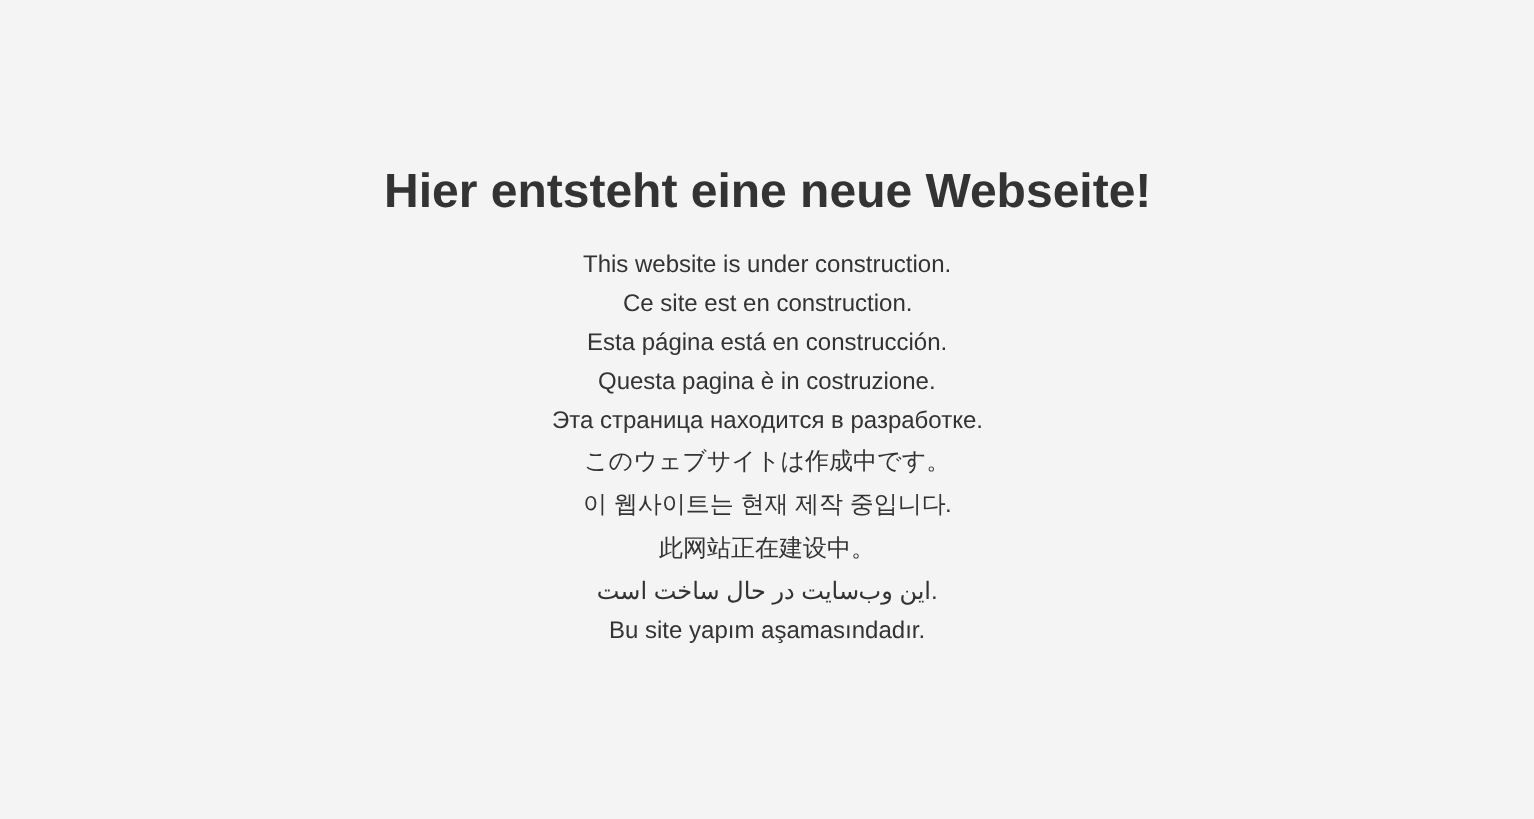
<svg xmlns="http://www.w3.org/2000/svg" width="1534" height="819">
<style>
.a{font:bold 48px Liberation Sans;fill:#333}
.b{font:24px Liberation Sans;fill:#333}
.c{font:500 24px WenQuanYi Zen Hei;fill:#333}
.d{font:24px DejaVu Sans;direction:rtl;fill:#333}
</style>
<rect width="100%" height="100%" fill="#f4f4f4"/>
<text class="a" x="384" y="207">Hier entsteht eine neue Webseite!</text>
<text class="b" x="583" y="272">This website is under construction.</text>
<text class="b" x="623" y="311">Ce site est en construction.</text>
<text class="b" x="587" y="350">Esta página está en construcción.</text>
<text class="b" x="598" y="389">Questa pagina è in costruzione.</text>
<text class="b" x="552" y="428">Эта страница находится в разработке.</text>
<text class="c" x="584" y="469">このウェブサイトは作成中です。</text>
<text class="c" x="583" y="512" word-spacing="-0.5">이 웹사이트는 현재 제작 중입니다</text>
<text class="b" x="945" y="512">.</text>
<text class="c" x="659" y="556">此网站正在建设中。</text>
<text class="d" x="859" y="599" word-spacing="-1">سایت در حال ساخت است</text>
<text class="d" x="931" y="599" word-spacing="-1">این وب</text>
<text class="b" x="931" y="599">.</text>
<text class="b" x="609" y="638">Bu site yapım aşamasındadır.</text>
</svg>
